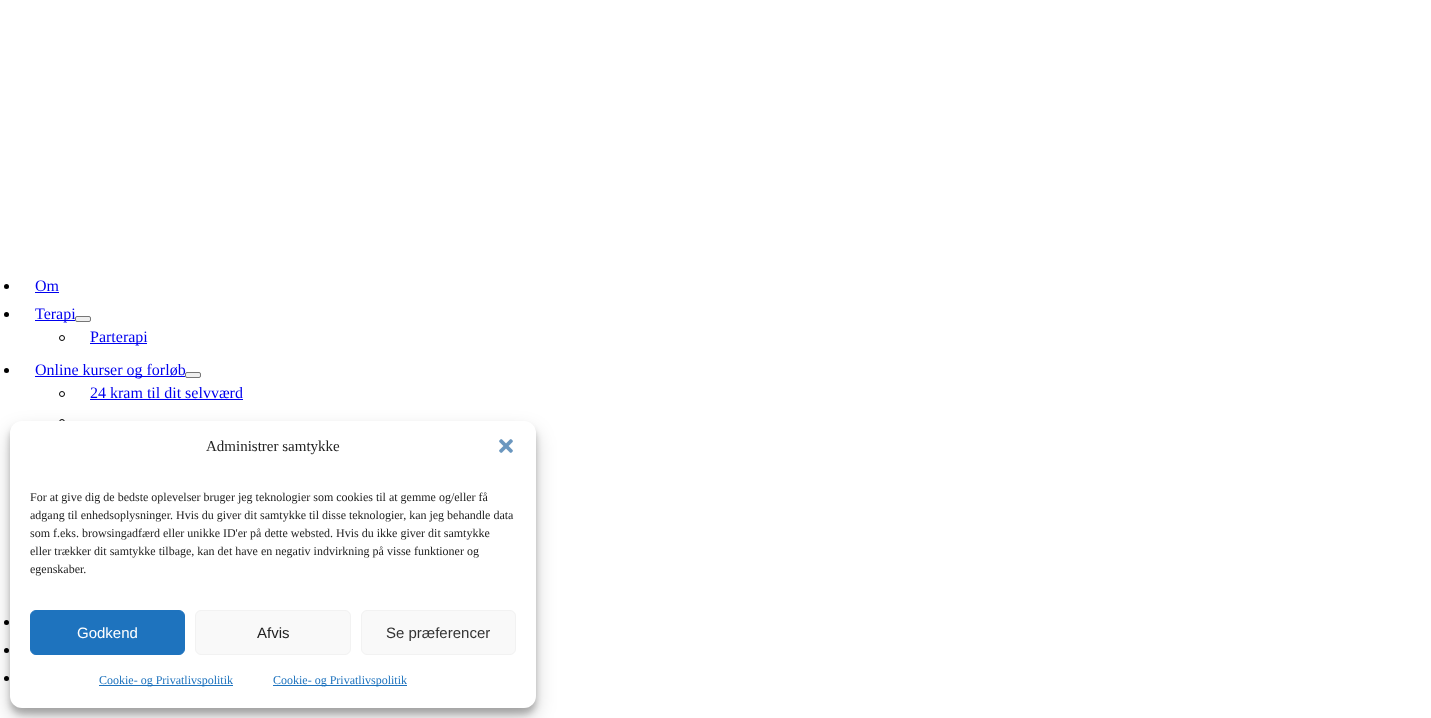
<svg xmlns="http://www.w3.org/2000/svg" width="1431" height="718">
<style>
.a{font:16px Liberation Serif;fill:#00e}
.b{font:15px Liberation Serif;fill:#222}
.c{font:12px Liberation Serif;fill:#222}
.d{font:15px Liberation Sans;fill:#fff}
.e{font:15px Liberation Sans;fill:#222}
.f{font:15px Liberation Sans;fill:#333}
.g{font:12px Liberation Serif;fill:#1e73be}
</style>
<rect width="100%" height="100%" fill="#fff"/>
<circle fill="#000" cx="6.5" cy="286.5" r="2.5"/>
<path fill="#00e" d="M35 292h24v1H35z"/>
<circle fill="#000" cx="6.5" cy="314.5" r="2.5"/>
<path fill="#00e" d="M35 320h40v1H35z"/>
<circle fill="none" stroke="#000" cx="62" cy="338" r="2.5"/>
<path fill="#00e" d="M90 343h57v1H90z"/>
<circle fill="#000" cx="6.5" cy="370.5" r="2.5"/>
<path fill="#00e" d="M35 376h150v1H35z"/>
<rect fill="#efefef" stroke="#767676" x="185.5" y="372.5" width="15" height="5" rx="1.5"/>
<circle fill="none" stroke="#000" cx="62" cy="394" r="2.5"/>
<path fill="#00e" d="M90 399h153v1H90z"/>
<circle fill="none" stroke="#000" cx="62" cy="422" r="2.5"/>
<circle fill="#000" cx="6.5" cy="622.5" r="2.5"/>
<circle fill="#000" cx="6.5" cy="650.5" r="2.5"/>
<circle fill="#000" cx="6.5" cy="678.5" r="2.5"/>
<rect fill="#0000003b" filter="blur(3px)" x="10" y="427" width="526" height="287" rx="12"/>
<rect fill="#00000030" filter="blur(10px)" x="10" y="431" width="526" height="287" rx="12"/>
<rect fill="#fff" x="10" y="421" width="526" height="287" rx="12"/>
<image href="1.png" x="499" y="439" width="14" height="14"/>
<rect fill="#1e73be" stroke="#1e73be" x="30.5" y="610.5" width="154" height="44" rx="5.5"/>
<rect fill="#f9f9f9" stroke="#f2f2f2" x="195.5" y="610.5" width="155" height="44" rx="5.5"/>
<rect fill="#f9f9f9" stroke="#f2f2f2" x="361.5" y="610.5" width="154" height="44" rx="5.5"/>
<path fill="#1e73be" d="M99 685h134v1H99z"/>
<path fill="#1e73be" d="M273 685h134v1H273z"/>
<text class="a" x="35" y="291">Om</text>
<text class="a" x="35" y="319">Terapi</text>
<rect fill="#efefef" stroke="#767676" x="75.5" y="316.5" width="15" height="5" rx="1.5"/>
<text class="a" x="90" y="342">Parterapi</text>
<text class="a" x="35" y="375">Online kurser og forløb</text>
<text class="a" x="90" y="398">24 kram til dit selvværd</text>
<text class="b" x="206" y="451">Administrer samtykke</text>
<text class="c" x="30" y="501">For at give dig de bedste oplevelser bruger jeg teknologier som cookies til at gemme og/eller få</text>
<text class="c" x="30" y="519">adgang til enhedsoplysninger. Hvis du giver dit samtykke til disse teknologier, kan jeg behandle data</text>
<text class="c" x="30" y="537">som f.eks. browsingadfærd eller unikke ID'er på dette websted. Hvis du ikke giver dit samtykke</text>
<text class="c" x="30" y="555">eller trækker dit samtykke tilbage, kan det have en negativ indvirkning på visse funktioner og</text>
<text class="c" x="30" y="573">egenskaber.</text>
<text class="d" x="77" y="638">Godkend</text>
<text class="e" x="257" y="638">Afvis</text>
<text class="f" x="386" y="638">Se præferencer</text>
<text class="g" x="99" y="684">Cookie- og Privatlivspolitik</text>
<text class="g" x="273" y="684">Cookie- og Privatlivspolitik</text>
</svg>
